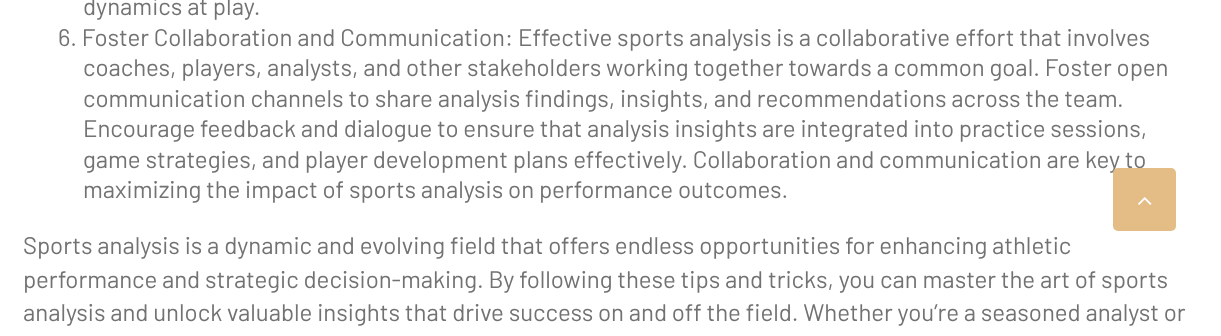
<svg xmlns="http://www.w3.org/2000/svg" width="1221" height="336">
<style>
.a{font:24px Barlow;fill:#727272}
</style>
<rect width="100%" height="100%" fill="#fff"/>
<text class="a" x="83" y="15">dynamics at play.</text>
<text class="a" x="58" y="46">6. Foster Collaboration and Communication: Effective sports analysis is a collaborative effort that involves</text>
<text class="a" x="83" y="76">coaches, players, analysts, and other stakeholders working together towards a common goal. Foster open</text>
<text class="a" x="83" y="107">communication channels to share analysis findings, insights, and recommendations across the team.</text>
<text class="a" x="83" y="137">Encourage feedback and dialogue to ensure that analysis insights are integrated into practice sessions,</text>
<text class="a" x="83" y="168">game strategies, and player development plans effectively. Collaboration and communication are key to</text>
<text class="a" x="83" y="198">maximizing the impact of sports analysis on performance outcomes.</text>
<text class="a" x="23" y="254">Sports analysis is a dynamic and evolving field that offers endless opportunities for enhancing athletic</text>
<text class="a" x="23" y="288">performance and strategic decision-making. By following these tips and tricks, you can master the art of sports</text>
<text class="a" x="23" y="321">analysis and unlock valuable insights that drive success on and off the field. Whether you’re a seasoned analyst or</text>
<rect fill="#e4bd86" x="1113" y="168" width="63" height="63" rx="5"/>
<image href="1.png" x="1138" y="197" width="14" height="8"/>
</svg>
